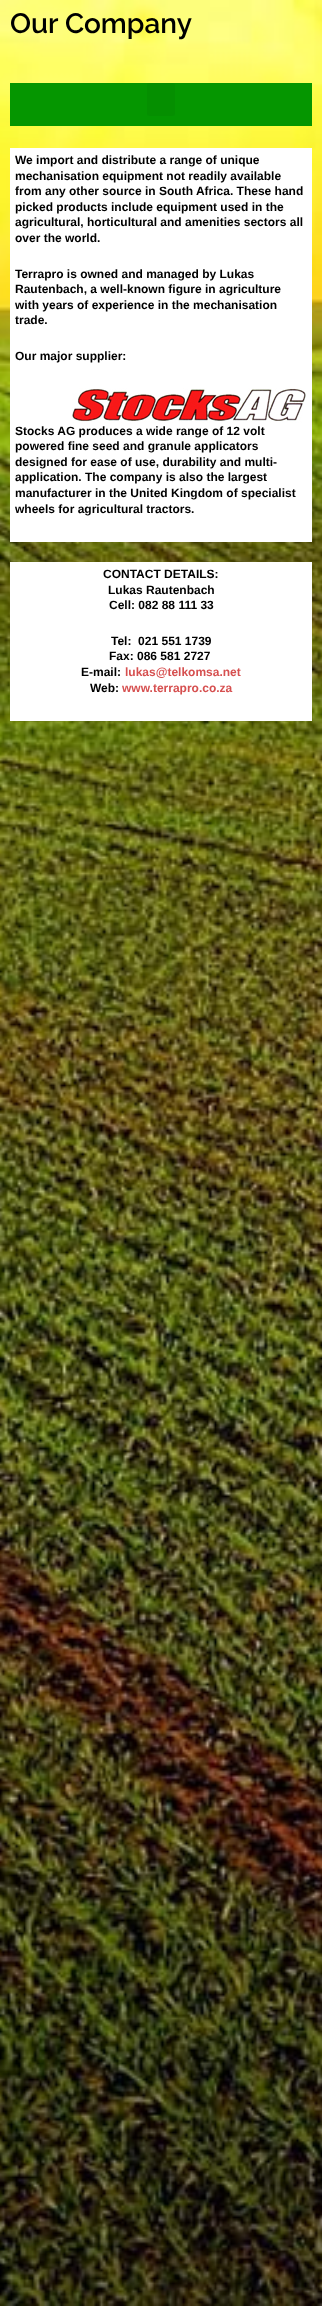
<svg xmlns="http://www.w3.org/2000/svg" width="322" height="2306">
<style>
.a{font:600 28px Raleway;fill:#000}
.b{font:bold 12px Liberation Sans;fill:#000}
.c{font:bold 12px Liberation Sans;fill:#d65050}
</style>
<rect width="100%" height="100%" fill="#fff"/>
<image href="1.png" x="0" y="0" width="322" height="2306"/>
<path fill="#059600" d="M10 83h302v43H10z"/>
<rect fill="#058f00" x="147" y="83" width="28" height="33" rx="3"/>
<path fill="#fff" d="M10 148h302v394H10z"/>
<image href="2.png" x="72" y="388" width="234" height="35"/>
<path fill="#fff" d="M10 562h302v159H10z"/>
<text class="a" x="10" y="33">Our Company</text>
<text class="b" x="15" y="164">We import and distribute a range of unique</text>
<text class="b" x="15" y="180">mechanisation equipment not readily available</text>
<text class="b" x="15" y="195">from any other source in South Africa. These hand</text>
<text class="b" x="15" y="211">picked products include equipment used in the</text>
<text class="b" x="15" y="226">agricultural, horticultural and amenities sectors all</text>
<text class="b" x="15" y="242">over the world.</text>
<text class="b" x="15" y="278">Terrapro is owned and managed by Lukas</text>
<text class="b" x="15" y="293">Rautenbach, a well-known figure in agriculture</text>
<text class="b" x="15" y="309">with years of experience in the mechanisation</text>
<text class="b" x="15" y="324">trade.</text>
<text class="b" x="15" y="360">Our major supplier:</text>
<text class="b" x="15" y="435">Stocks AG produces a wide range of 12 volt</text>
<text class="b" x="15" y="450">powered fine seed and granule applicators</text>
<text class="b" x="15" y="466">designed for ease of use, durability and multi-</text>
<text class="b" x="15" y="481">application. The company is also the largest</text>
<text class="b" x="15" y="497">manufacturer in the United Kingdom of specialist</text>
<text class="b" x="15" y="513">wheels for agricultural tractors.</text>
<text class="b" x="103" y="578">CONTACT DETAILS:</text>
<text class="b" x="108" y="594">Lukas Rautenbach</text>
<text class="b" x="109" y="609">Cell: 082 88 111 33</text>
<text class="b" xml:space="preserve" x="111" y="645">Tel:  021 551 1739</text>
<text class="b" x="109" y="660">Fax: 086 581 2727</text>
<text class="b" x="81" y="676">E-mail:</text>
<text class="c" x="125" y="676">lukas@telkomsa.net</text>
<text class="b" x="90" y="692">Web:</text>
<text class="c" x="122" y="692">www.terrapro.co.za</text>
</svg>
